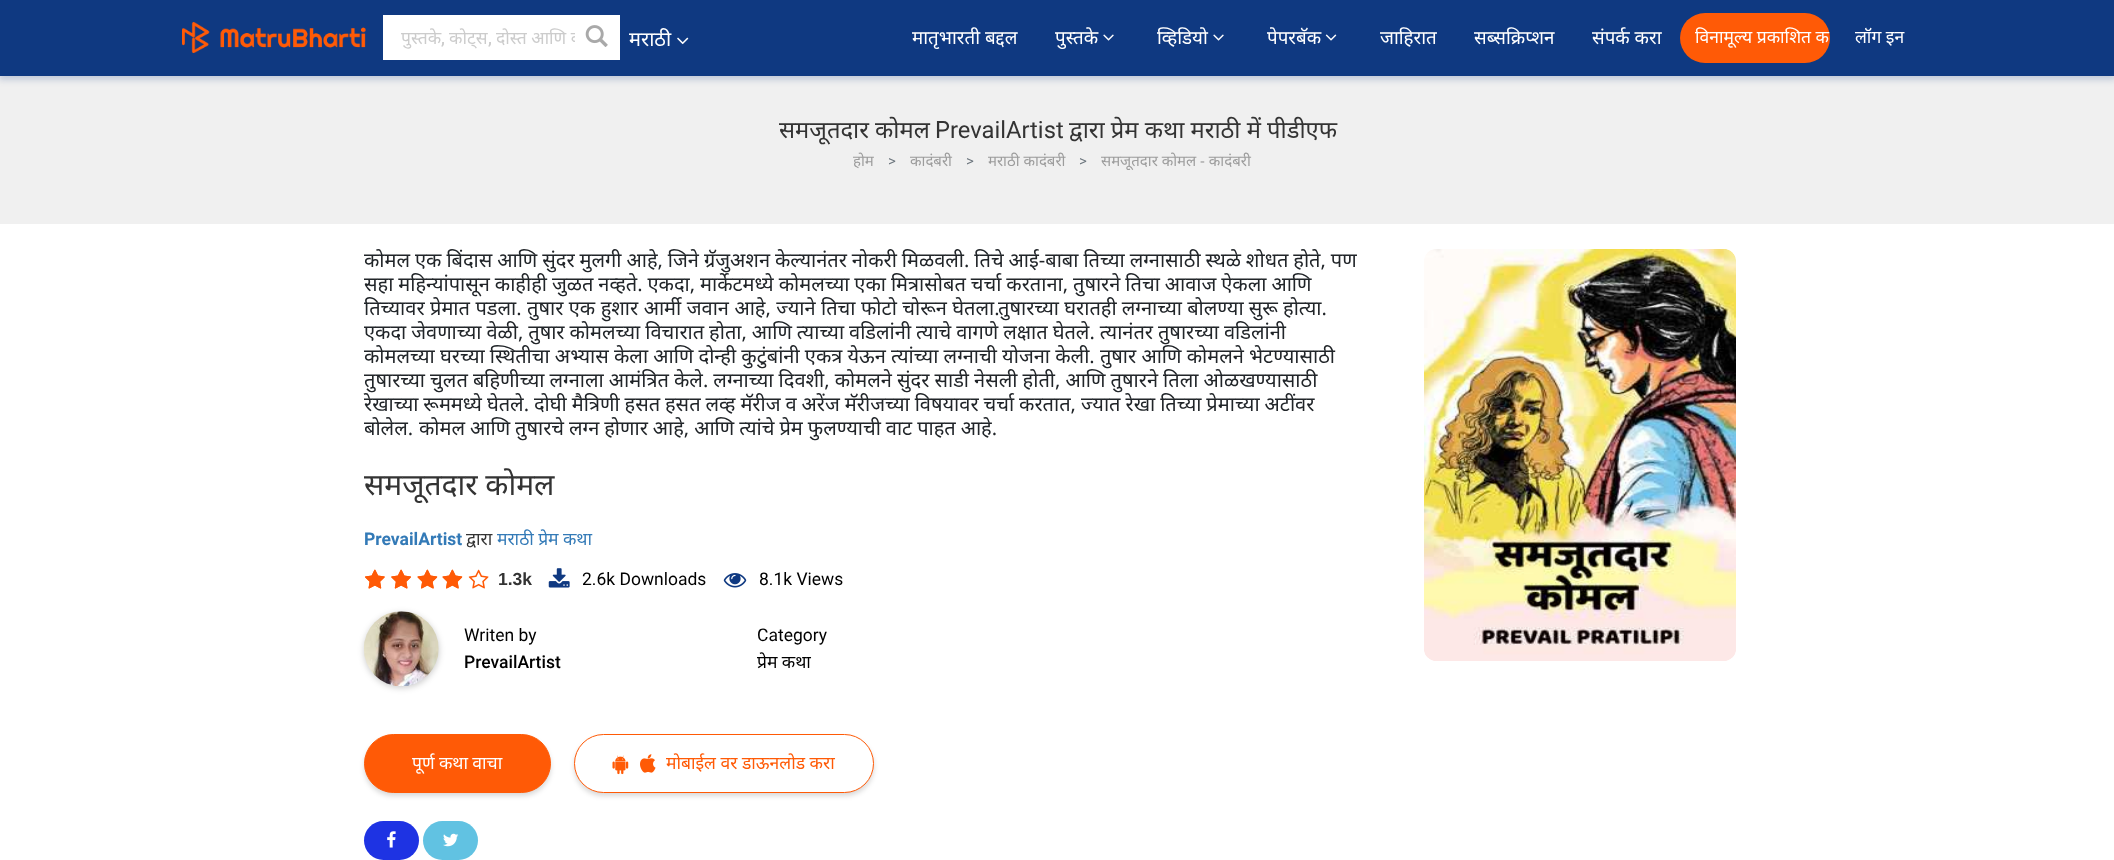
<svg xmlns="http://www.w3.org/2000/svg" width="2114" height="860">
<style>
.a{font:17.5px Noto Sans;fill:#ccc}
.b{font:500 17.5px Roboto;fill:#ccc}
.c{font:20px Noto Sans;fill:#fff}
.d{font:18.75px Noto Sans;fill:#fff}
.e{font:17.5px Noto Sans;fill:#fff}
.f{font:23.75px Noto Sans;fill:#333}
.g{font:23.75px Roboto;fill:#333}
.h{font:15px Noto Sans;fill:#9c9c9c}
.i{font:15px Roboto;fill:#6c757d}
.j{font:20px Noto Sans;fill:#212529}
.k{font:30px Noto Sans;fill:#333}
.l{font:bold 17.5px Roboto;fill:#337ab7}
.m{font:17.5px Noto Sans;fill:#333}
.n{font:17.5px Noto Sans;fill:#337ab7}
.o{font:bold 17.5px Liberation Sans;fill:#333}
.p{font:17.5px Roboto;fill:#000}
.q{font:500 17.5px Roboto;fill:#000}
.r{font:17.5px Noto Sans;fill:#000}
.s{font:17.5px Noto Sans;fill:#ff5a06}
</style>
<defs>
<clipPath id="clip1"><path d="M398 25h177v24H398z"/></clipPath>
<clipPath id="clip2"><path d="M364 450h191v54H364z"/></clipPath>
</defs>
<rect width="100%" height="100%" fill="#fff"/>
<path fill="#f0f0f0" d="M0 76h2114v148H0z"/>
<path fill="#0f398133" filter="blur(3px)" d="M-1 1h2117v79H-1z"/>
<path fill="#0f3981" d="M0 0h2114v76H0z"/>
<image href="1.png" x="182" y="22" width="184" height="31"/>
<path fill="#fff" d="M383 15h237v45H383z"/>
<image href="2.png" x="585" y="25" width="23" height="22"/>
<image href="3.png" x="677" y="37" width="12" height="8"/>
<image href="4.png" x="1103" y="34" width="11" height="7"/>
<image href="4.png" x="1213" y="34" width="11" height="7"/>
<image href="5.png" x="1325" y="34" width="12" height="7"/>
<rect fill="#ff5a06" x="1680" y="13" width="150" height="50" rx="25"/>
<image href="6.png" x="365" y="569" width="20" height="20"/>
<image href="7.png" x="391" y="569" width="20" height="20"/>
<image href="8.png" x="417" y="569" width="21" height="20"/>
<image href="8.png" x="442" y="569" width="21" height="20"/>
<image href="9.png" x="468" y="569" width="21" height="20"/>
<image href="10.png" x="365" y="569" width="20" height="20"/>
<image href="11.png" x="391" y="569" width="20" height="20"/>
<image href="12.png" x="417" y="569" width="21" height="20"/>
<image href="12.png" x="442" y="569" width="21" height="20"/>
<image href="13.png" x="548" y="568" width="22" height="20"/>
<image href="14.png" x="723" y="573" width="24" height="15"/>
<rect fill="#00000033" filter="blur(3px)" x="364" y="613" width="75" height="75" rx="37.5"/>
<image href="15.png" x="364" y="611" width="75" height="75"/>
<rect fill="#00000026" filter="blur(2.5px)" x="364" y="738" width="187" height="58" rx="29"/>
<rect fill="#ff5a06" stroke="#ff5a06" x="364.5" y="734.5" width="186" height="58" rx="29"/>
<rect fill="#00000026" filter="blur(2.5px)" x="574" y="738" width="300" height="58" rx="29"/>
<rect fill="#fff" stroke="#ff5a06" x="574.5" y="734.5" width="299" height="58" rx="29"/>
<image href="16.png" x="612" y="755" width="17" height="20"/>
<image href="17.png" x="640" y="754" width="16" height="19"/>
<rect fill="#1e33e3" x="364" y="821" width="55" height="39" rx="19.5"/>
<image href="18.png" x="387" y="831" width="9" height="17"/>
<rect fill="#61c2e2" x="423" y="821" width="55" height="39" rx="19.5"/>
<image href="19.png" x="443" y="833" width="16" height="14"/>
<image href="20.png" x="1424" y="249" width="312" height="412"/>
<g clip-path="url(#clip1)">
<text class="a" x="401" y="44">पुस्तके</text>
</g>
<text class="b" x="441" y="44">,</text>
<text class="a" x="449" y="44">कोट्स</text>
<text class="b" x="488" y="44">,</text>
<g clip-path="url(#clip1)">
<text class="a" x="496" y="44">दोस्त आणि व</text>
</g>
<text class="c" x="629" y="46">मराठी</text>
<text class="d" x="912" y="44">मातृभारती बद्दल</text>
<text class="d" x="1055" y="44">पुस्तके</text>
<text class="d" x="1157" y="44">व्हिडियो</text>
<text class="d" x="1267" y="44">पेपरबॅक</text>
<text class="d" x="1380" y="44">जाहिरात</text>
<text class="d" x="1474" y="44">सब्सक्रिप्शन</text>
<text class="d" x="1592" y="44">संपर्क करा</text>
<text class="e" x="1695" y="43">विनामूल्य प्रकाशित क</text>
<text class="e" x="1855" y="43">लॉग इन</text>
<text class="f" x="779" y="138">समजूतदार कोमल</text>
<text class="g" x="935" y="138">PrevailArtist</text>
<text class="f" x="1069" y="138">द्वारा प्रेम कथा मराठी में पीडीएफ</text>
<text class="h" x="853" y="166">होम</text>
<text class="i" x="888" y="166">&gt;</text>
<text class="h" x="910" y="166">कादंबरी</text>
<text class="i" x="966" y="166">&gt;</text>
<text class="h" x="988" y="166">मराठी कादंबरी</text>
<text class="i" x="1079" y="166">&gt;</text>
<text class="h" x="1101" y="166">समजूतदार कोमल - कादंबरी</text>
<text class="j" x="364" y="267" word-spacing="-0.25">कोमल एक बिंदास आणि सुंदर मुलगी आहे, जिने ग्रॅजुअशन केल्यानंतर नोकरी मिळवली. तिचे आई-बाबा तिच्या लग्नासाठी स्थळे शोधत होते, पण</text>
<text class="j" x="364" y="291" word-spacing="-0.25">सहा महिन्यांपासून काहीही जुळत नव्हते. एकदा, मार्केटमध्ये कोमलच्या एका मित्रासोबत चर्चा करताना, तुषारने तिचा आवाज ऐकला आणि</text>
<text class="j" x="364" y="315" word-spacing="0.25">तिच्यावर प्रेमात पडला. तुषार एक हुशार आर्मी जवान आहे, ज्याने तिचा फोटो चोरून घेतला.</text>
<text class="j" x="998" y="315">तुषारच्या घरातही लग्नाच्या बोलण्या सुरू होत्या.</text>
<text class="j" x="364" y="339" word-spacing="-0.25">एकदा जेवणाच्या वेळी, तुषार कोमलच्या विचारात होता, आणि त्याच्या वडिलांनी त्याचे वागणे लक्षात घेतले. त्यानंतर तुषारच्या वडिलांनी</text>
<text class="j" x="364" y="363">कोमलच्या घरच्या स्थितीचा अभ्यास केला आणि दोन्ही कुटुंबांनी एकत्र येऊन त्यांच्या लग्नाची योजना केली. तुषार आणि कोमलने भेटण्यासाठी</text>
<text class="j" x="364" y="387" word-spacing="-0.1">तुषारच्या चुलत बहिणीच्या लग्नाला आमंत्रित केले. लग्नाच्या दिवशी, कोमलने सुंदर साडी नेसली होती, आणि तुषारने तिला ओळखण्यासाठी</text>
<text class="j" x="364" y="411" word-spacing="-0.25">रेखाच्या रूममध्ये घेतले. दोघी मैत्रिणी हसत हसत लव्ह मॅरीज व अरेंज मॅरीजच्या विषयावर चर्चा करतात, ज्यात रेखा तिच्या प्रेमाच्या अटींवर</text>
<text class="j" x="364" y="435">बोलेल.</text>
<text class="j" x="419" y="435" word-spacing="-0.25">कोमल आणि तुषारचे लग्न होणार आहे, आणि त्यांचे प्रेम फुलण्याची वाट पाहत आहे.</text>
<g clip-path="url(#clip2)">
<text class="k" x="364" y="495">समजूतदार कोमल</text>
</g>
<text class="l" x="364" y="545">PrevailArtist</text>
<text class="m" x="466" y="545">द्वारा</text>
<text class="n" x="497" y="545" word-spacing="-0.25">मराठी प्रेम कथा</text>
<text class="o" x="498" y="585">1.3k</text>
<text class="p" x="582" y="585">2.6k Downloads</text>
<text class="p" x="759" y="585">8.1k Views</text>
<text class="p" x="464" y="641">Writen by</text>
<text class="q" x="464" y="668">PrevailArtist</text>
<text class="p" x="757" y="641">Category</text>
<text class="r" x="757" y="668" word-spacing="-0.25">प्रेम कथा</text>
<text class="e" x="412" y="769" word-spacing="-0.25">पूर्ण कथा वाचा</text>
<text class="s" x="666" y="769">मोबाईल वर डाऊनलोड करा</text>
</svg>
